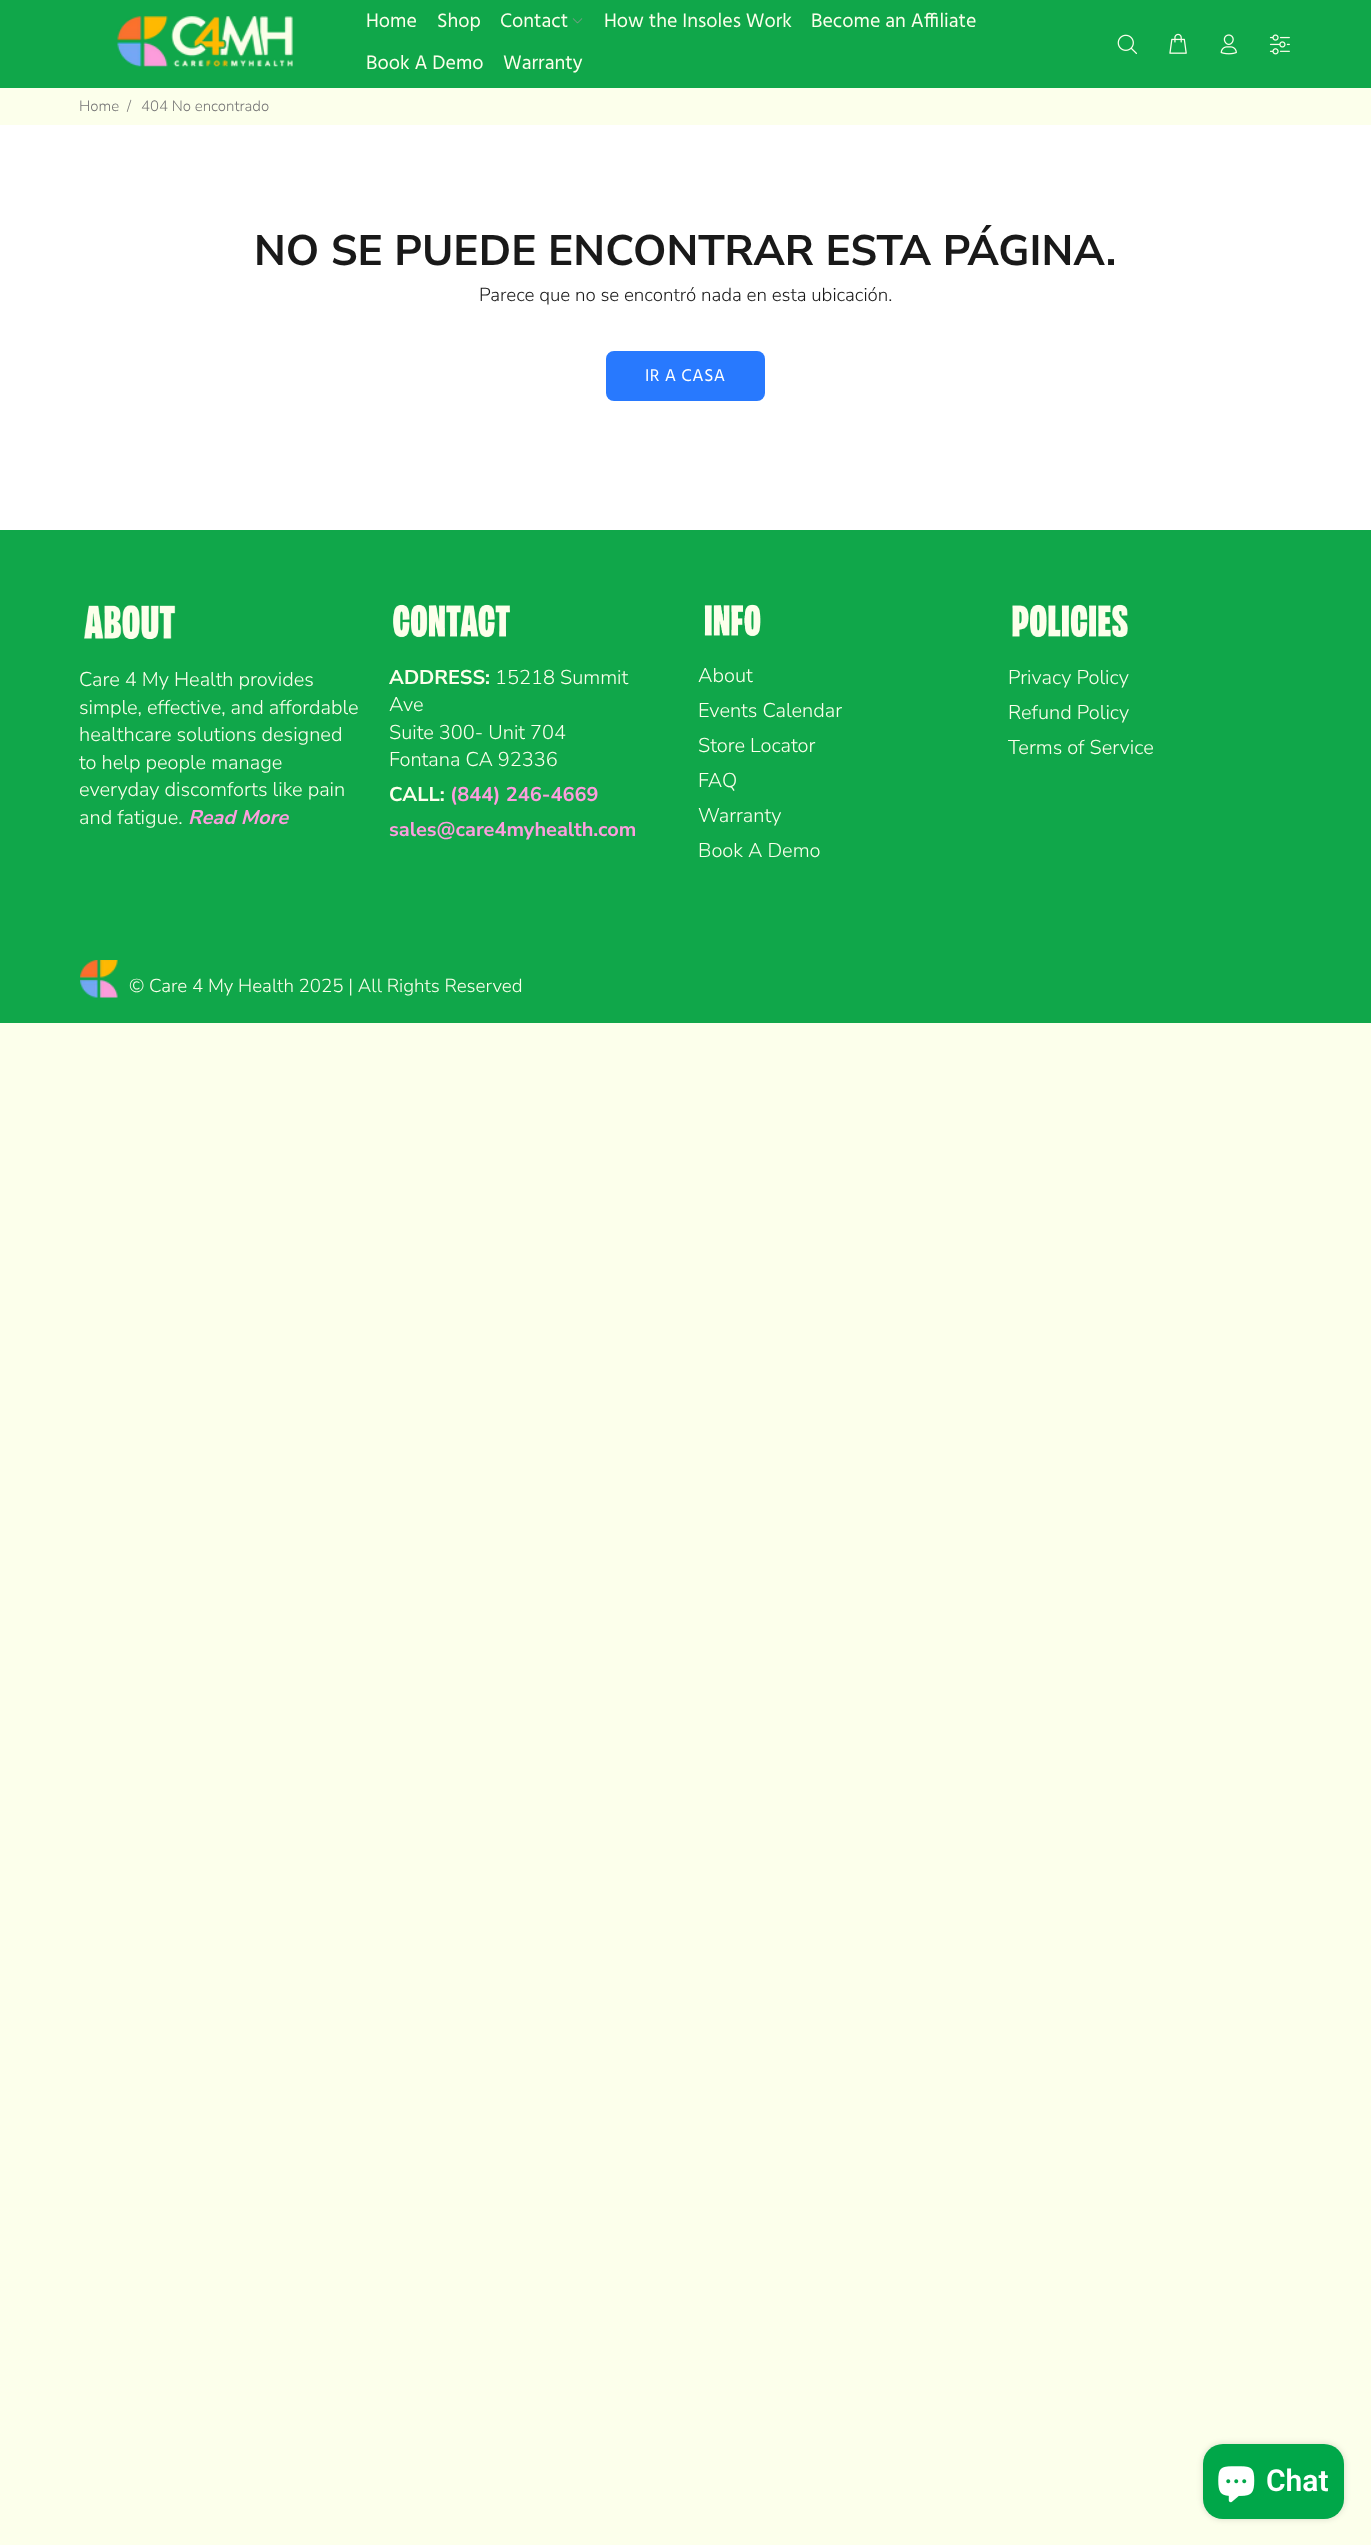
<svg xmlns="http://www.w3.org/2000/svg" width="1371" height="2545">
<style>
.a{font:20px Hind;fill:#fcffeb}
.b{font:300 15px Nunito Sans;fill:#777}
.c{font:bold 42.5px Nunito Sans;fill:#191919}
.d{font:300 18.75px Nunito Sans;fill:#191919}
.e{font:17.5px Hind;letter-spacing:0.5px;fill:#fff}
.f{font:300 20px Nunito Sans;fill:#fcffeb}
.g{font:italic bold 20px Nunito Sans;fill:#fc9ede}
.h{font:bold 20px Nunito Sans;fill:#fcffeb}
.i{font:bold 20px Nunito Sans;fill:#fc9ede}
.j{font:300 18.75px Nunito Sans;fill:#fcffeb}
.k{font:600 30px Roboto;fill:#fff}
</style>
<rect width="100%" height="100%" fill="#fcffeb"/>
<path fill="#10a74a" d="M0 0h1371v88H0z"/>
<image href="1.png" x="117" y="16" width="176" height="51"/>
<image href="2.png" x="572" y="18" width="11" height="6"/>
<image href="3.png" x="1117" y="34" width="20" height="21"/>
<image href="4.png" x="1169" y="33" width="18" height="21"/>
<image href="5.png" x="1220" y="34" width="17" height="21"/>
<image href="6.png" x="1269" y="34" width="21" height="21"/>
<path fill="#fff" d="M0 125h1371v405H0z"/>
<rect fill="#2879fe" x="606" y="351" width="159" height="50" rx="8"/>
<path fill="#10a74a" d="M0 530h1371v493H0z"/>
<image href="7.png" x="84" y="605" width="92" height="35"/>
<image href="8.png" x="393" y="604" width="117" height="34"/>
<image href="9.png" x="704" y="604" width="57" height="33"/>
<image href="10.png" x="1012" y="604" width="116" height="34"/>
<image href="11.png" x="80" y="960" width="38" height="38"/>
<rect fill="#00000026" filter="blur(3px)" x="1203" y="2444" width="141" height="75" rx="20"/>
<rect fill="#00a749" x="1203" y="2444" width="141" height="75" rx="20"/>
<image href="12.png" x="1218" y="2466" width="37" height="37"/>
<text class="a" x="366" y="27">Home</text>
<text class="a" x="437" y="27">Shop</text>
<text class="a" x="500" y="27">Contact</text>
<text class="a" x="604" y="27">How the Insoles Work</text>
<text class="a" x="811" y="27">Become an Affiliate</text>
<text class="a" x="366" y="69">Book A Demo</text>
<text class="a" x="503" y="69">Warranty</text>
<text class="b" x="79" y="111">Home</text>
<text class="b" x="127" y="111">/</text>
<text class="b" x="141" y="111">404 No encontrado</text>
<text class="c" x="254" y="265">NO SE PUEDE ENCONTRAR ESTA PÁGINA.</text>
<text class="d" x="479" y="301">Parece que no se encontró nada en esta ubicación.</text>
<text class="e" x="645" y="381">IR A CASA</text>
<text class="f" x="79" y="686">Care 4 My Health provides</text>
<text class="f" x="79" y="714">simple, effective, and affordable</text>
<text class="f" x="79" y="741">healthcare solutions designed</text>
<text class="f" x="79" y="769">to help people manage</text>
<text class="f" x="79" y="796">everyday discomforts like pain</text>
<text class="f" x="79" y="824">and fatigue.</text>
<text class="g" x="188" y="824">Read More</text>
<text class="h" x="389" y="684">ADDRESS:</text>
<text class="f" x="495" y="684">15218 Summit</text>
<text class="f" x="389" y="711">Ave</text>
<text class="f" x="389" y="739">Suite 300- Unit 704</text>
<text class="f" x="389" y="766">Fontana CA 92336</text>
<text class="h" x="389" y="801">CALL:</text>
<text class="i" x="450" y="801">(844) 246-4669</text>
<text class="i" x="389" y="836">sales@care4myhealth.com</text>
<text class="f" x="698" y="682">About</text>
<text class="f" x="698" y="717">Events Calendar</text>
<text class="f" x="698" y="752">Store Locator</text>
<text class="f" x="698" y="787">FAQ</text>
<text class="f" x="698" y="822">Warranty</text>
<text class="f" x="698" y="857">Book A Demo</text>
<text class="f" x="1008" y="684">Privacy Policy</text>
<text class="f" x="1008" y="719">Refund Policy</text>
<text class="f" x="1008" y="754">Terms of Service</text>
<text class="j" x="129" y="992">© Care 4 My Health 2025 | All Rights Reserved</text>
<text class="k" x="1266" y="2491">Chat</text>
</svg>
